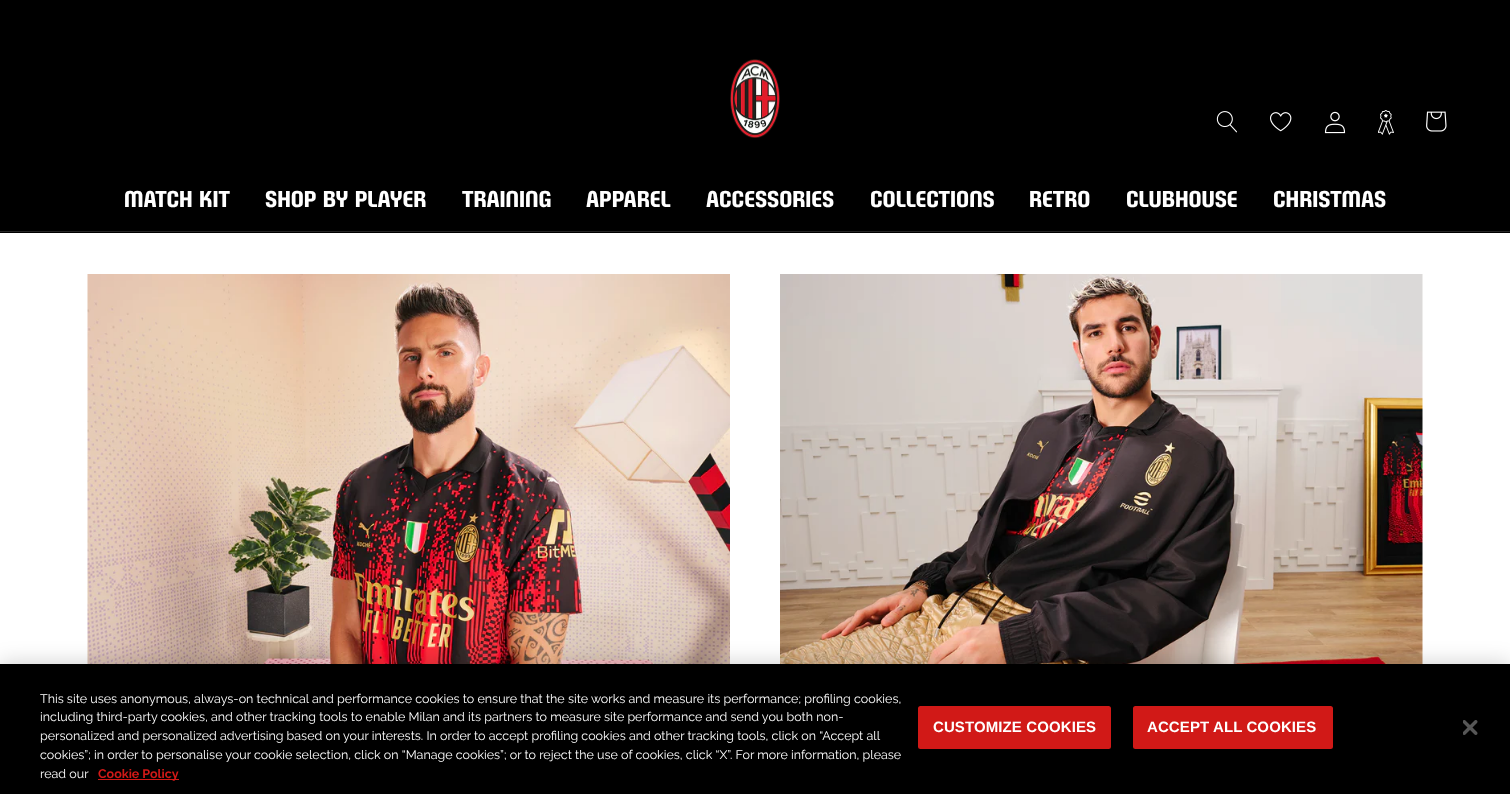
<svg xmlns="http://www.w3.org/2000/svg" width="1510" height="794">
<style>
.a{font:20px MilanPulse;fill:#fff}
.b{font:12.5px Raleway;fill:#fff}
.c{font:bold 12.5px Raleway;fill:#d11917}
.d{font:bold 15px Liberation Sans;letter-spacing:0.1px;fill:#fff}
</style>
<rect width="100%" height="100%" fill="#fff"/>
<path fill="#000" d="M0 0h1510v233H0z"/>
<path fill="#262626" d="M0 231h1510v1H0z"/>
<image href="1.png" x="730" y="59" width="50" height="79"/>
<image href="2.png" x="1216" y="111" width="21" height="22"/>
<image href="3.png" x="1270" y="112" width="22" height="20"/>
<image href="4.png" x="1324" y="111" width="22" height="23"/>
<image href="5.png" x="1378" y="110" width="16" height="25"/>
<image href="6.png" x="1426" y="111" width="21" height="21"/>
<image href="7.png" x="87" y="274" width="643" height="390"/>
<image href="8.png" x="780" y="274" width="643" height="390"/>
<path fill="#00000033" filter="blur(11px)" d="M0 664h1510v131H0z"/>
<path fill="#000" d="M0 664h1510v130H0z"/>
<path fill="#d11917" d="M98 779h81v1H98z"/>
<rect fill="#d11917" stroke="#d11917" stroke-width="3" x="919.5" y="707.5" width="190" height="40" rx="1"/>
<rect fill="#d11917" stroke="#d11917" stroke-width="3" x="1134.5" y="707.5" width="197" height="40" rx="1"/>
<image href="9.png" x="1463" y="720" width="15" height="15"/>
<text class="a" x="124" y="207">MATCH KIT</text>
<text class="a" x="265" y="207">SHOP BY PLAYER</text>
<text class="a" x="462" y="207">TRAINING</text>
<text class="a" x="586" y="207">APPAREL</text>
<text class="a" x="706" y="207">ACCESSORIES</text>
<text class="a" x="870" y="207">COLLECTIONS</text>
<text class="a" x="1029" y="207">RETRO</text>
<text class="a" x="1126" y="207">CLUBHOUSE</text>
<text class="a" x="1273" y="207">CHRISTMAS</text>
<text class="b" x="40" y="703">This site uses anonymous, always-on technical and performance cookies to ensure that the site works and measure its performance; profiling cookies,</text>
<text class="b" x="40" y="721">including third-party cookies, and other tracking tools to enable Milan and its partners to measure site performance and send you both non-</text>
<text class="b" x="40" y="740">personalized and personalized advertising based on your interests. In order to accept profiling cookies and other tracking tools, click on “Accept all</text>
<text class="b" x="40" y="759">cookies”; in order to personalise your cookie selection, click on “Manage cookies”; or to reject the use of cookies, click “X”. For more information, please</text>
<text class="b" x="40" y="778">read our</text>
<text class="c" x="98" y="778">Cookie Policy</text>
<text class="d" x="933" y="732">CUSTOMIZE COOKIES</text>
<text class="d" x="1147" y="732">ACCEPT ALL COOKIES</text>
</svg>
